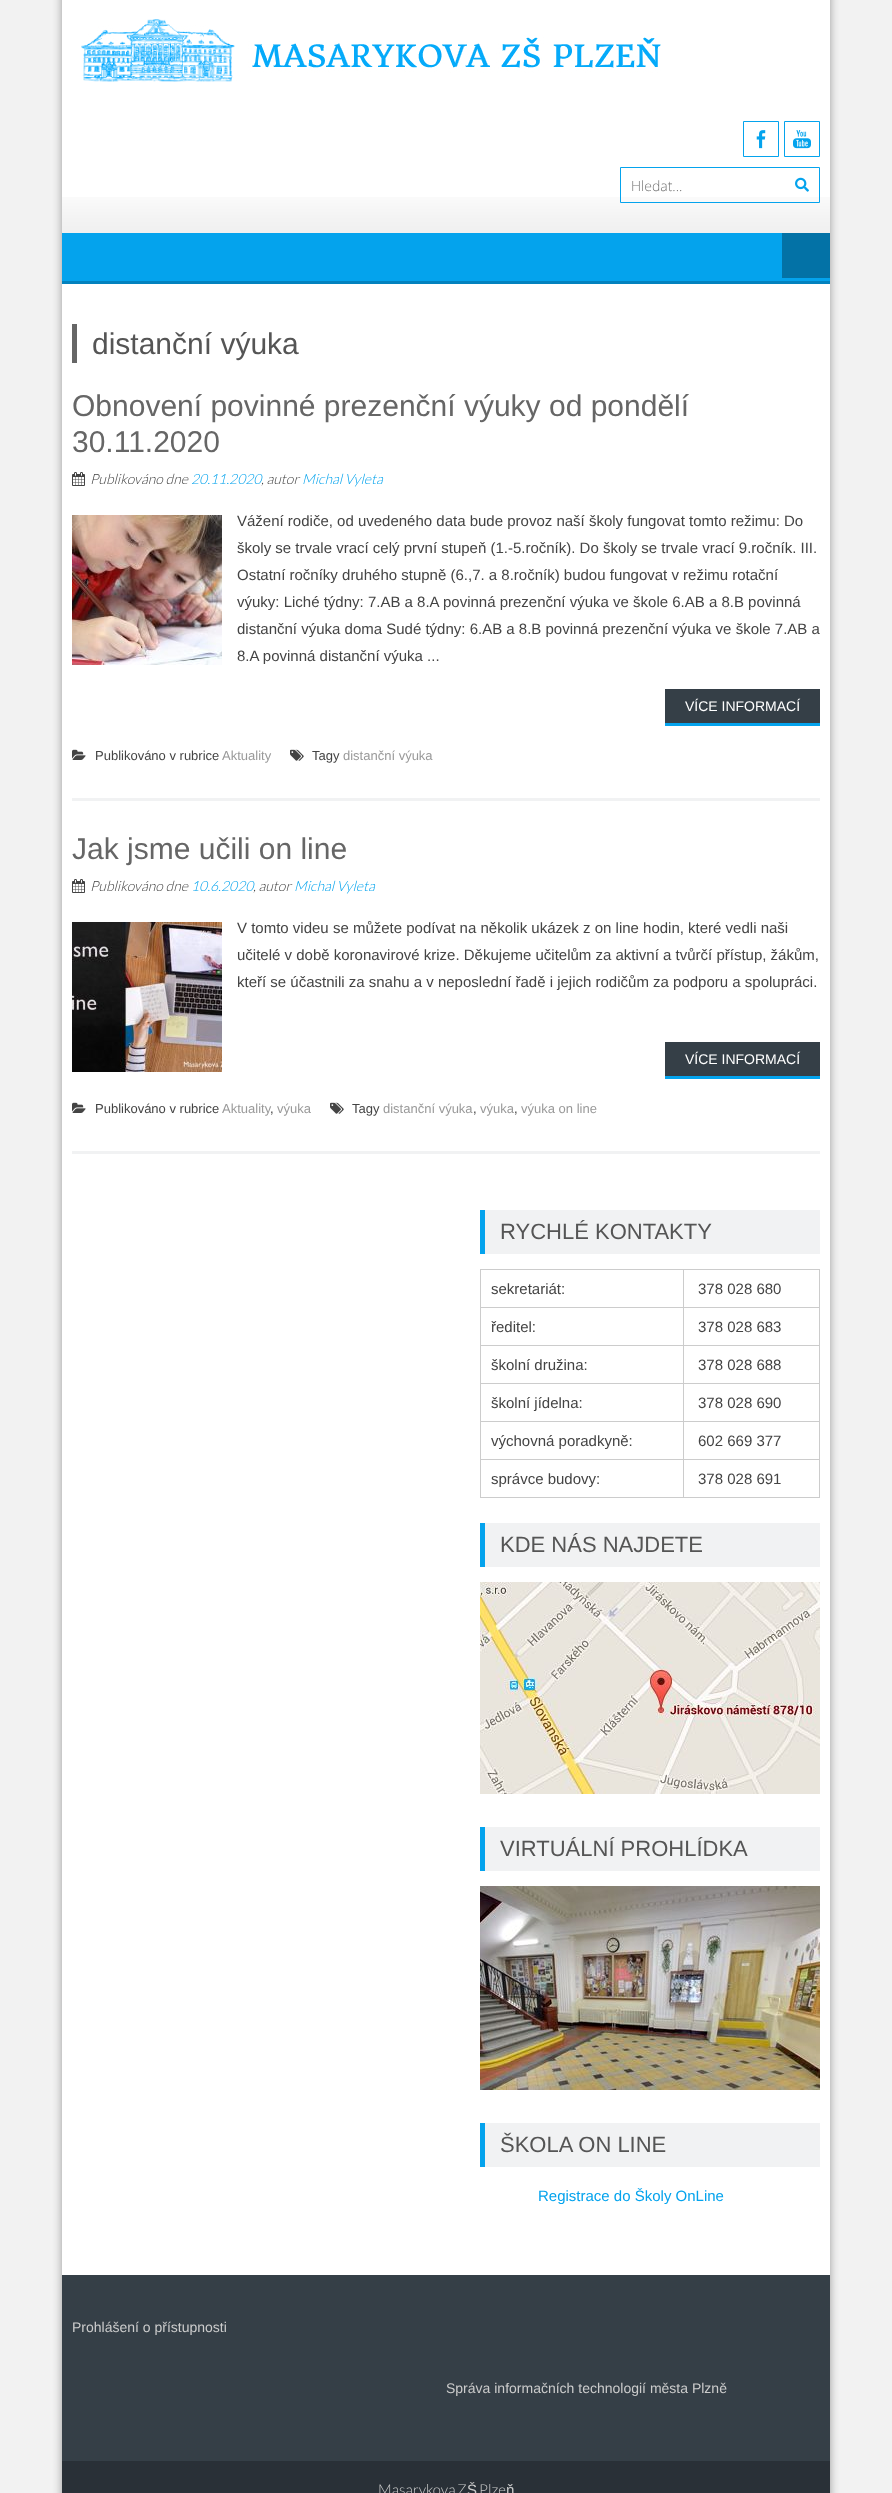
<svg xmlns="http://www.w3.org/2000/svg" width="892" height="2493">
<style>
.a{font:300 14px Open Sans;fill:#757575}
.b{font:30px Arimo;fill:#555}
.c{font:30px Arimo;fill:#666}
.d{font:italic 300 14px Lato;fill:#444}
.e{font:italic 300 14px Lato;fill:#04a3ed}
.f{font:15px Arimo;fill:#444}
.g{font:14px Arimo;fill:#fff}
.h{font:13px Arimo;fill:#444}
.i{font:13px Arimo;fill:#999}
.j{font:22px Arimo;fill:#555}
.k{font:15px Arimo;fill:#04a3ed}
.l{font:14px Arimo;fill:#ccc}
.m{font:300 15px Lato;fill:#ccc}
.n{font:15px Liberation Sans;fill:#ccc}
</style>
<rect width="100%" height="100%" fill="#f2f2f2"/>
<path fill="#999" filter="blur(5px)" d="M62 -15h768v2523H62z"/>
<path fill="#fff" d="M62 0h768v2275H62z"/>
<image href="1.png" x="62" y="197" width="768" height="36"/>
<image href="2.png" x="81" y="19" width="580" height="63"/>
<path fill="none" stroke="#04a3ed" d="M743.5 121.5h35v35H743.5z"/>
<image href="3.png" x="756" y="130" width="10" height="19"/>
<path fill="none" stroke="#04a3ed" d="M784.5 121.5h35v35H784.5z"/>
<image href="4.png" x="793" y="130" width="18" height="19"/>
<path fill="none" stroke="#04a3ed" d="M620.5 167.5h199v35H620.5z"/>
<image href="5.png" x="795" y="177" width="14" height="15"/>
<path fill="#04a3ed" d="M62 233h720v48H62z"/>
<path fill="#0382be" d="M62 281h768v3H62z"/>
<path fill="#0372a6" d="M782 233h48v45H782z"/>
<path fill="#04a3ed" d="M782 278h48v3H782z"/>
<path fill="#666" d="M72 324h5v39H72z"/>
<path fill="#f1f2f3" d="M72 798h748v3H72z"/>
<image href="6.png" x="72" y="472" width="13" height="14"/>
<image href="7.png" x="72" y="515" width="150" height="150"/>
<path fill="#353f47" d="M665 689h155v34H665z"/>
<path fill="#04a3ed" d="M665 723h155v3H665z"/>
<image href="8.png" x="72" y="749" width="14" height="11"/>
<image href="9.png" x="290" y="749" width="14" height="12"/>
<path fill="#f1f2f3" d="M72 1151h748v3H72z"/>
<image href="6.png" x="72" y="879" width="13" height="14"/>
<image href="10.png" x="72" y="922" width="150" height="150"/>
<path fill="#353f47" d="M665 1042h155v34H665z"/>
<path fill="#04a3ed" d="M665 1076h155v3H665z"/>
<image href="8.png" x="72" y="1102" width="14" height="11"/>
<image href="9.png" x="330" y="1102" width="14" height="12"/>
<path fill="#f1f2f3" d="M485 1210h335v44H485z"/>
<path fill="#04a3ed" d="M480 1210h5v44H480z"/>
<path fill="#ccc" d="M683 1269h137v1H683z"/>
<path fill="#ccc" d="M683 1307h137v1H683z"/>
<path fill="#ccc" d="M683 1345h137v1H683z"/>
<path fill="#ccc" d="M683 1383h137v1H683z"/>
<path fill="#ccc" d="M683 1421h137v1H683z"/>
<path fill="#ccc" d="M683 1459h137v1H683z"/>
<path fill="#ccc" d="M819 1459h1v39H819z"/>
<path fill="#ccc" d="M683 1497h137v1H683z"/>
<path fill="#ccc" d="M683 1459h1v39H683z"/>
<path fill="#ccc" d="M480 1459h204v1H480z"/>
<path fill="#ccc" d="M683 1421h1v39H683z"/>
<path fill="#ccc" d="M480 1421h204v1H480z"/>
<path fill="#ccc" d="M683 1383h1v39H683z"/>
<path fill="#ccc" d="M480 1383h204v1H480z"/>
<path fill="#ccc" d="M683 1345h1v39H683z"/>
<path fill="#ccc" d="M480 1345h204v1H480z"/>
<path fill="#ccc" d="M683 1307h1v39H683z"/>
<path fill="#ccc" d="M480 1307h204v1H480z"/>
<path fill="#ccc" d="M683 1269h1v39H683z"/>
<path fill="#ccc" d="M480 1269h204v1H480z"/>
<path fill="#ccc" d="M480 1497h204v1H480z"/>
<path fill="#ccc" d="M480 1459h1v39H480z"/>
<path fill="#ccc" d="M480 1421h1v39H480z"/>
<path fill="#ccc" d="M480 1383h1v39H480z"/>
<path fill="#ccc" d="M480 1345h1v39H480z"/>
<path fill="#ccc" d="M480 1307h1v39H480z"/>
<path fill="#ccc" d="M480 1269h1v39H480z"/>
<path fill="#ccc" d="M819 1421h1v39H819z"/>
<path fill="#ccc" d="M819 1383h1v39H819z"/>
<path fill="#ccc" d="M819 1345h1v39H819z"/>
<path fill="#ccc" d="M819 1307h1v39H819z"/>
<path fill="#ccc" d="M819 1269h1v39H819z"/>
<path fill="#f1f2f3" d="M485 1523h335v44H485z"/>
<path fill="#04a3ed" d="M480 1523h5v44H480z"/>
<image href="11.png" x="480" y="1582" width="340" height="212"/>
<path fill="#f1f2f3" d="M485 1827h335v44H485z"/>
<path fill="#04a3ed" d="M480 1827h5v44H480z"/>
<image href="12.png" x="480" y="1886" width="340" height="204"/>
<path fill="#f1f2f3" d="M485 2123h335v44H485z"/>
<path fill="#04a3ed" d="M480 2123h5v44H480z"/>
<path fill="#353f47" d="M62 2275h768v186H62z"/>
<path fill="#293037" d="M62 2461h768v32H62z"/>
<text class="a" x="631" y="191">Hledat...</text>
<text class="b" x="92" y="354">distanční výuka</text>
<text class="c" x="72" y="416">Obnovení povinné prezenční výuky od pondělí</text>
<text class="c" x="72" y="452">30.11.2020</text>
<text class="d" x="90" y="484">Publikováno dne</text>
<text class="e" x="191" y="484">20.11.2020</text>
<text class="d" x="261" y="484">, autor</text>
<text class="e" x="302" y="484">Michal Vyleta</text>
<text class="f" x="237" y="526">Vážení rodiče, od uvedeného data bude provoz naší školy fungovat tomto režimu: Do</text>
<text class="f" x="237" y="553">školy se trvale vrací celý první stupeň (1.-5.ročník). Do školy se trvale vrací 9.ročník. III.</text>
<text class="f" x="237" y="580">Ostatní ročníky druhého stupně (6.,7. a 8.ročník) budou fungovat v režimu rotační</text>
<text class="f" x="237" y="607">výuky: Liché týdny: 7.AB a 8.A povinná prezenční výuka ve škole 6.AB a 8.B povinná</text>
<text class="f" x="237" y="634">distanční výuka doma Sudé týdny: 6.AB a 8.B povinná prezenční výuka ve škole 7.AB a</text>
<text class="f" x="237" y="661">8.A povinná distanční výuka ...</text>
<text class="g" x="685" y="711">VÍCE INFORMACÍ</text>
<text class="h" x="95" y="760">Publikováno v rubrice</text>
<text class="i" x="222" y="760">Aktuality</text>
<text class="h" x="312" y="760">Tagy</text>
<text class="i" x="343" y="760">distanční výuka</text>
<text class="c" x="72" y="859">Jak jsme učili on line</text>
<text class="d" x="90" y="891">Publikováno dne</text>
<text class="e" x="191" y="891">10.6.2020</text>
<text class="d" x="253" y="891">, autor</text>
<text class="e" x="294" y="891">Michal Vyleta</text>
<text class="f" x="237" y="933">V tomto videu se můžete podívat na několik ukázek z on line hodin, které vedli naši</text>
<text class="f" x="237" y="960">učitelé v době koronavirové krize. Děkujeme učitelům za aktivní a tvůrčí přístup, žákům,</text>
<text class="f" x="237" y="987">kteří se účastnili za snahu a v neposlední řadě i jejich rodičům za podporu a spolupráci.</text>
<text class="g" x="685" y="1064">VÍCE INFORMACÍ</text>
<text class="h" x="95" y="1113">Publikováno v rubrice</text>
<text class="i" x="222" y="1113">Aktuality</text>
<text class="h" x="270" y="1113">,</text>
<text class="i" x="277" y="1113">výuka</text>
<text class="h" x="352" y="1113">Tagy</text>
<text class="i" x="383" y="1113">distanční výuka</text>
<text class="h" x="473" y="1113">,</text>
<text class="i" x="480" y="1113">výuka</text>
<text class="h" x="514" y="1113">,</text>
<text class="i" x="521" y="1113">výuka on line</text>
<text class="j" x="500" y="1239">RYCHLÉ KONTAKTY</text>
<text class="f" x="491" y="1294">sekretariát:</text>
<text class="f" x="698" y="1294">378 028 680</text>
<text class="f" x="491" y="1332">ředitel:</text>
<text class="f" x="698" y="1332">378 028 683</text>
<text class="f" x="491" y="1370">školní družina:</text>
<text class="f" x="698" y="1370">378 028 688</text>
<text class="f" x="491" y="1408">školní jídelna:</text>
<text class="f" x="698" y="1408">378 028 690</text>
<text class="f" x="491" y="1446">výchovná poradkyně:</text>
<text class="f" x="698" y="1446">602 669 377</text>
<text class="f" x="491" y="1484">správce budovy:</text>
<text class="f" x="698" y="1484">378 028 691</text>
<text class="j" x="500" y="1552">KDE NÁS NAJDETE</text>
<text class="j" x="500" y="1856">VIRTUÁLNÍ PROHLÍDKA</text>
<text class="j" x="500" y="2152">ŠKOLA ON LINE</text>
<text class="k" x="538" y="2201">Registrace do Školy OnLine</text>
<text class="l" x="72" y="2332">Prohlášení o přístupnosti</text>
<text class="l" x="446" y="2393">Správa informačních technologií města Plzně</text>
<text class="m" x="378" y="2495" word-spacing="-1">Masarykova Z</text>
<text class="n" x="467" y="2495">Š</text>
<text class="m" x="479" y="2495">Plze</text>
<text class="n" x="506" y="2495">ň</text>
</svg>
